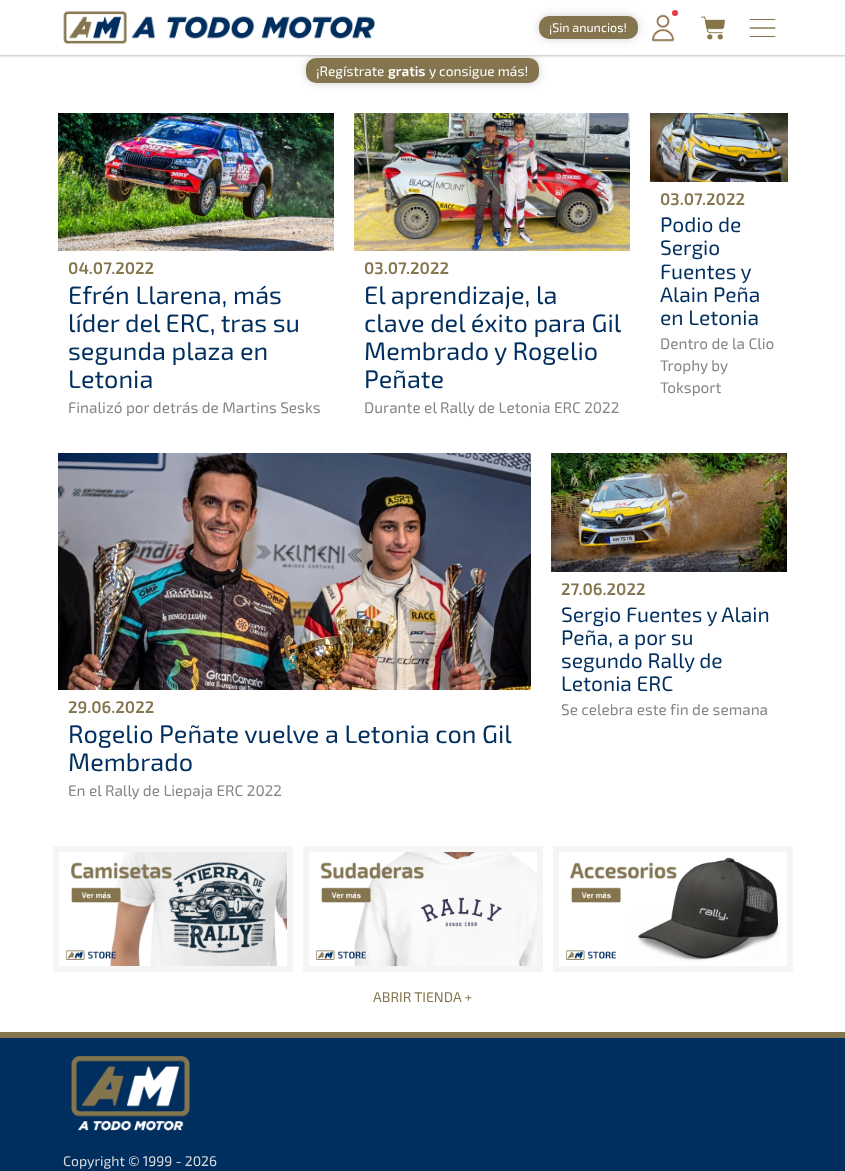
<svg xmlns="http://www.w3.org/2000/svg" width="845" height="1171">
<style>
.a{font:12.5px 'Exo 2';fill:#fff}
.b{font:13.75px 'Exo 2';fill:#fff}
.c{font:600 13.75px 'Exo 2';fill:#fff}
.d{font:600 16.75px 'Exo 2';fill:#84754e}
.e{font:25.25px 'Exo 2';fill:#002f5f}
.f{font:15.4px 'Exo 2';fill:#858585}
.g{font:21px 'Exo 2';fill:#002f5f}
.h{font:14px 'Exo 2';fill:#84754e}
.i{font:14px 'Exo 2';fill:#ddd}
</style>
<rect width="100%" height="100%" fill="#fff"/>
<rect fill="#0000002e" filter="blur(5px)" x="306" y="58" width="233" height="25" rx="10"/>
<rect fill="#84754e" x="306" y="58" width="233" height="25" rx="10"/>
<path fill="#c0c0c0" filter="blur(1px)" d="M-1 -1h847v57H-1z"/>
<path fill="#fff" d="M0 0h845v55H0z"/>
<image href="1.png" x="63" y="11" width="312" height="33"/>
<rect fill="#0000002e" filter="blur(5px)" x="539" y="16" width="99" height="23" rx="10"/>
<rect fill="#84754e" x="539" y="16" width="99" height="23" rx="10"/>
<image href="2.png" x="651" y="14" width="23" height="28"/>
<circle fill="#e63946" cx="675" cy="13" r="3"/>
<image href="3.png" x="701" y="16" width="24" height="24"/>
<image href="4.png" x="749" y="18" width="27" height="20"/>
<image href="5.png" x="58" y="113" width="276" height="138"/>
<image href="6.png" x="354" y="113" width="276" height="138"/>
<image href="7.png" x="650" y="113" width="138" height="69"/>
<image href="8.png" x="551" y="453" width="236" height="119"/>
<image href="9.png" x="58" y="453" width="473" height="237"/>
<path fill="none" stroke="#f5f5f5" stroke-width="6" d="M56 849h234v120H56z"/>
<image href="10.png" x="66" y="852" width="221" height="114"/>
<path fill="none" stroke="#f5f5f5" stroke-width="6" d="M306 849h234v120H306z"/>
<image href="11.png" x="316" y="852" width="221" height="114"/>
<path fill="none" stroke="#f5f5f5" stroke-width="6" d="M556 849h234v120H556z"/>
<image href="12.png" x="566" y="857" width="215" height="105"/>
<path fill="#002f5f" d="M0 1038h845v133H0z"/>
<path fill="#84754e" d="M0 1032h845v6H0z"/>
<image href="13.png" x="71" y="1056" width="119" height="75"/>
<text class="a" x="549" y="32">¡Sin anuncios!</text>
<text class="b" x="316" y="76">¡Regístrate</text>
<text class="c" x="388" y="76">gratis</text>
<text class="b" x="429" y="76">y consigue más!</text>
<text class="d" x="68" y="274">04.07.2022</text>
<text class="e" x="68" y="304">Efrén Llarena, más</text>
<text class="e" x="68" y="332">líder del ERC, tras su</text>
<text class="e" x="68" y="360">segunda plaza en</text>
<text class="e" x="68" y="388">Letonia</text>
<text class="f" x="68" y="413">Finalizó por detrás de Martins Sesks</text>
<text class="d" x="364" y="274">03.07.2022</text>
<text class="e" x="364" y="304">El aprendizaje, la</text>
<text class="e" x="364" y="332">clave del éxito para Gil</text>
<text class="e" x="364" y="360">Membrado y Rogelio</text>
<text class="e" x="364" y="388">Peñate</text>
<text class="f" x="364" y="413">Durante el Rally de Letonia ERC 2022</text>
<text class="d" x="660" y="205">03.07.2022</text>
<text class="g" x="660" y="232">Podio de</text>
<text class="g" x="660" y="255">Sergio</text>
<text class="g" x="660" y="279">Fuentes y</text>
<text class="g" x="660" y="302">Alain Peña</text>
<text class="g" x="660" y="325">en Letonia</text>
<text class="f" x="660" y="349">Dentro de la Clio</text>
<text class="f" x="660" y="371">Trophy by</text>
<text class="f" x="660" y="393">Toksport</text>
<text class="d" x="561" y="595">27.06.2022</text>
<text class="g" x="561" y="622">Sergio Fuentes y Alain</text>
<text class="g" x="561" y="645">Peña, a por su</text>
<text class="g" x="561" y="668">segundo Rally de</text>
<text class="g" x="561" y="691">Letonia ERC</text>
<text class="f" x="561" y="715">Se celebra este fin de semana</text>
<text class="d" x="68" y="713">29.06.2022</text>
<text class="e" x="68" y="743">Rogelio Peñate vuelve a Letonia con Gil</text>
<text class="e" x="68" y="771">Membrado</text>
<text class="f" x="68" y="796">En el Rally de Liepaja ERC 2022</text>
<text class="h" x="373" y="1002">ABRIR TIENDA +</text>
<text class="i" x="63" y="1166">Copyright © 1999 - 2026</text>
</svg>
